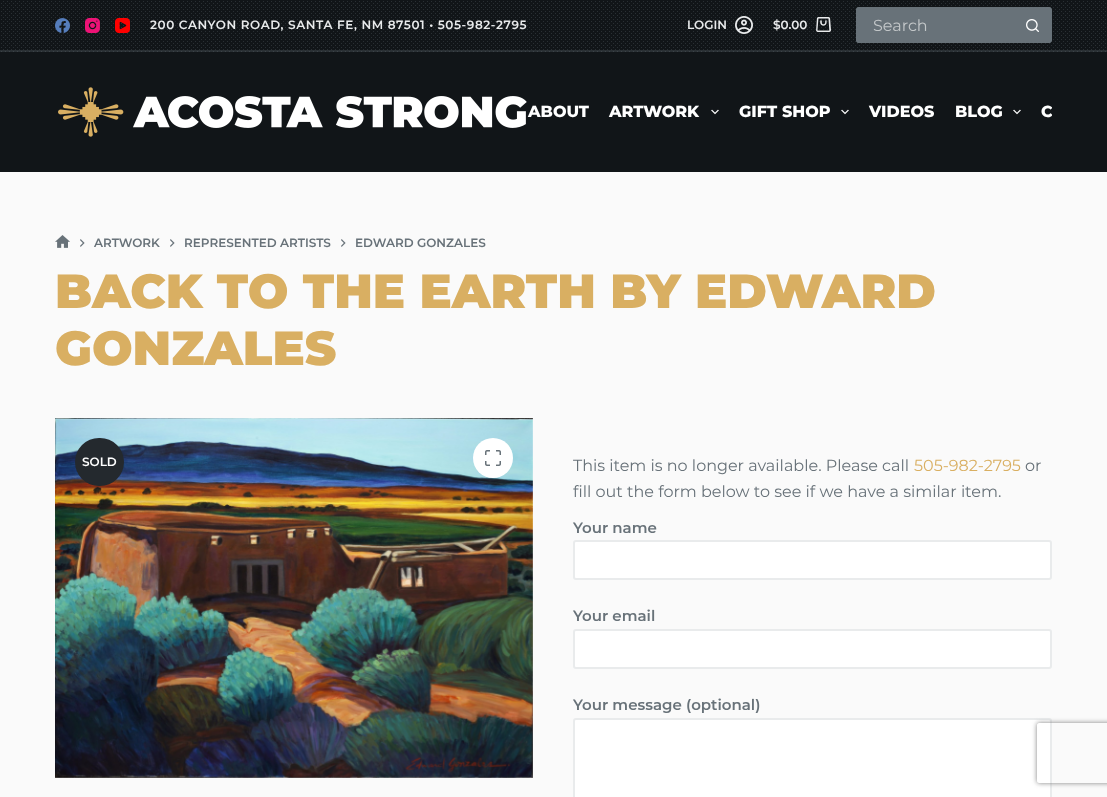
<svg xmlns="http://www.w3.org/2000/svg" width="1107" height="797">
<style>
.a{font:600 12px Montserrat;letter-spacing:0.6px;fill:#e9ebec}
.b{font:600 12px Montserrat;fill:#e9ebec}
.c{font:16px Montserrat;fill:#c3c7c9}
.d{font:800 16px Montserrat;fill:#fff}
.e{font:600 12px Montserrat;fill:#687279}
.f{font:900 48px Montserrat;fill:#d9af62}
.g{font:600 12px Montserrat;fill:#fff}
.h{font:16px Montserrat;fill:#687279}
.i{font:16px Montserrat;fill:#d9af62}
.j{font:600 15px Montserrat;fill:#687279}
</style>
<defs>
<clipPath id="clip1"><path d="M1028 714h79v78h-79zm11 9h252c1 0 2 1 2 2v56c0 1-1 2-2 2h-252c-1 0-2-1-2-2v-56c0-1 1-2 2-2z" clip-rule="evenodd"/></clipPath>
<clipPath id="clip2"><path d="M518 52h534v120H518z"/></clipPath>
</defs>
<rect width="100%" height="100%" fill="#fafafa"/>
<path fill="#111518" d="M0 0h1107v172H0z"/>
<image href="1.png" x="1" y="1" width="1105" height="51"/>
<path fill="#6771784d" d="M0 50h1107v2H0z"/>
<image href="2.png" x="55" y="18" width="15" height="15"/>
<image href="3.png" x="85" y="18" width="15" height="15"/>
<image href="4.png" x="115" y="18" width="15" height="15"/>
<image href="5.png" x="735" y="16" width="18" height="18"/>
<image href="6.png" x="816" y="17" width="15" height="15"/>
<path fill="#687279" d="M859 7h157v36h-157c-1.5 0-3-1.5-3-3v-30c0-1.5 1.5-3 3-3z"/>
<path fill="#687279" fill-rule="evenodd" d="M859 7h157v36h-157c-2 0-3-1-3-3v-30c0-2 1-3 3-3zm0 2h157v32h-157c-1 0-1 0-1-1v-30c0-1 0-1 1-1z"/>
<path fill="#687279" d="M1016 7h33c1.5 0 3 1.5 3 3v30c0 1.5-1.5 3-3 3h-33z"/>
<path fill="#687279" fill-rule="evenodd" d="M1016 7h33c1.5 0 3 1.5 3 3v30c0 1.5-1.5 3-3 3h-33zm0 2h33c.5 0 1 .5 1 1v30c0 .5-.5 1-1 1h-33z"/>
<image href="7.png" x="1026" y="19" width="13" height="13"/>
<image href="8.png" x="58" y="87" width="469" height="50"/>
<image href="9.png" x="711" y="109" width="8" height="6"/>
<image href="9.png" x="841" y="109" width="8" height="6"/>
<image href="9.png" x="1013" y="109" width="8" height="6"/>
<image href="10.png" x="55" y="235" width="15" height="13"/>
<image href="11.png" x="80" y="239" width="5" height="8"/>
<image href="11.png" x="170" y="239" width="5" height="8"/>
<image href="11.png" x="341" y="239" width="5" height="8"/>
<image href="12.png" x="55" y="418" width="478" height="360"/>
<rect fill="#24292e" x="75" y="438" width="49" height="48" rx="24"/>
<circle fill="#fff" cx="493" cy="458" r="20"/>
<image href="13.png" x="485" y="450" width="16" height="16"/>
<rect fill="#fff" stroke="#e9ebec" stroke-width="2" x="574" y="541" width="477" height="38" rx="2"/>
<rect fill="#fff" stroke="#e9ebec" stroke-width="2" x="574" y="630" width="477" height="38" rx="2"/>
<rect fill="#fff" stroke="#e9ebec" stroke-width="2" x="574" y="719" width="477" height="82" rx="2"/>
<g clip-path="url(#clip1)">
<rect fill="#808080" filter="blur(2.5px)" x="1037" y="723" width="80" height="60" rx="2"/>
</g>
<text class="a" x="150" y="29">200 CANYON ROAD, SANTA FE, NM 87501 • 505-982-2795</text>
<text class="b" x="687" y="29">LOGIN</text>
<text class="b" x="773" y="29">$0.00</text>
<text class="c" x="873" y="31">Search</text>
<text class="d" x="528" y="117">ABOUT</text>
<text class="d" x="609" y="117">ARTWORK</text>
<text class="d" x="739" y="117">GIFT SHOP</text>
<text class="d" x="869" y="117">VIDEOS</text>
<text class="d" x="955" y="117">BLOG</text>
<g clip-path="url(#clip2)">
<text class="d" x="1041" y="117">C</text>
</g>
<text class="e" x="94" y="247">ARTWORK</text>
<text class="e" x="184" y="247">REPRESENTED ARTISTS</text>
<text class="e" x="355" y="247">EDWARD GONZALES</text>
<text class="f" x="55" y="308">BACK TO THE EARTH BY EDWARD</text>
<text class="f" x="55" y="365">GONZALES</text>
<text class="g" x="82" y="466">SOLD</text>
<text class="h" x="573" y="471">This item is no longer available. Please call</text>
<text class="i" x="914" y="471">505-982-2795</text>
<text class="h" x="1025" y="471">or</text>
<text class="h" x="573" y="497">fill out the form below to see if we have a similar item.</text>
<text class="j" x="573" y="533">Your name</text>
<text class="j" x="573" y="621">Your email</text>
<text class="j" x="573" y="710">Your message (optional)</text>
</svg>
